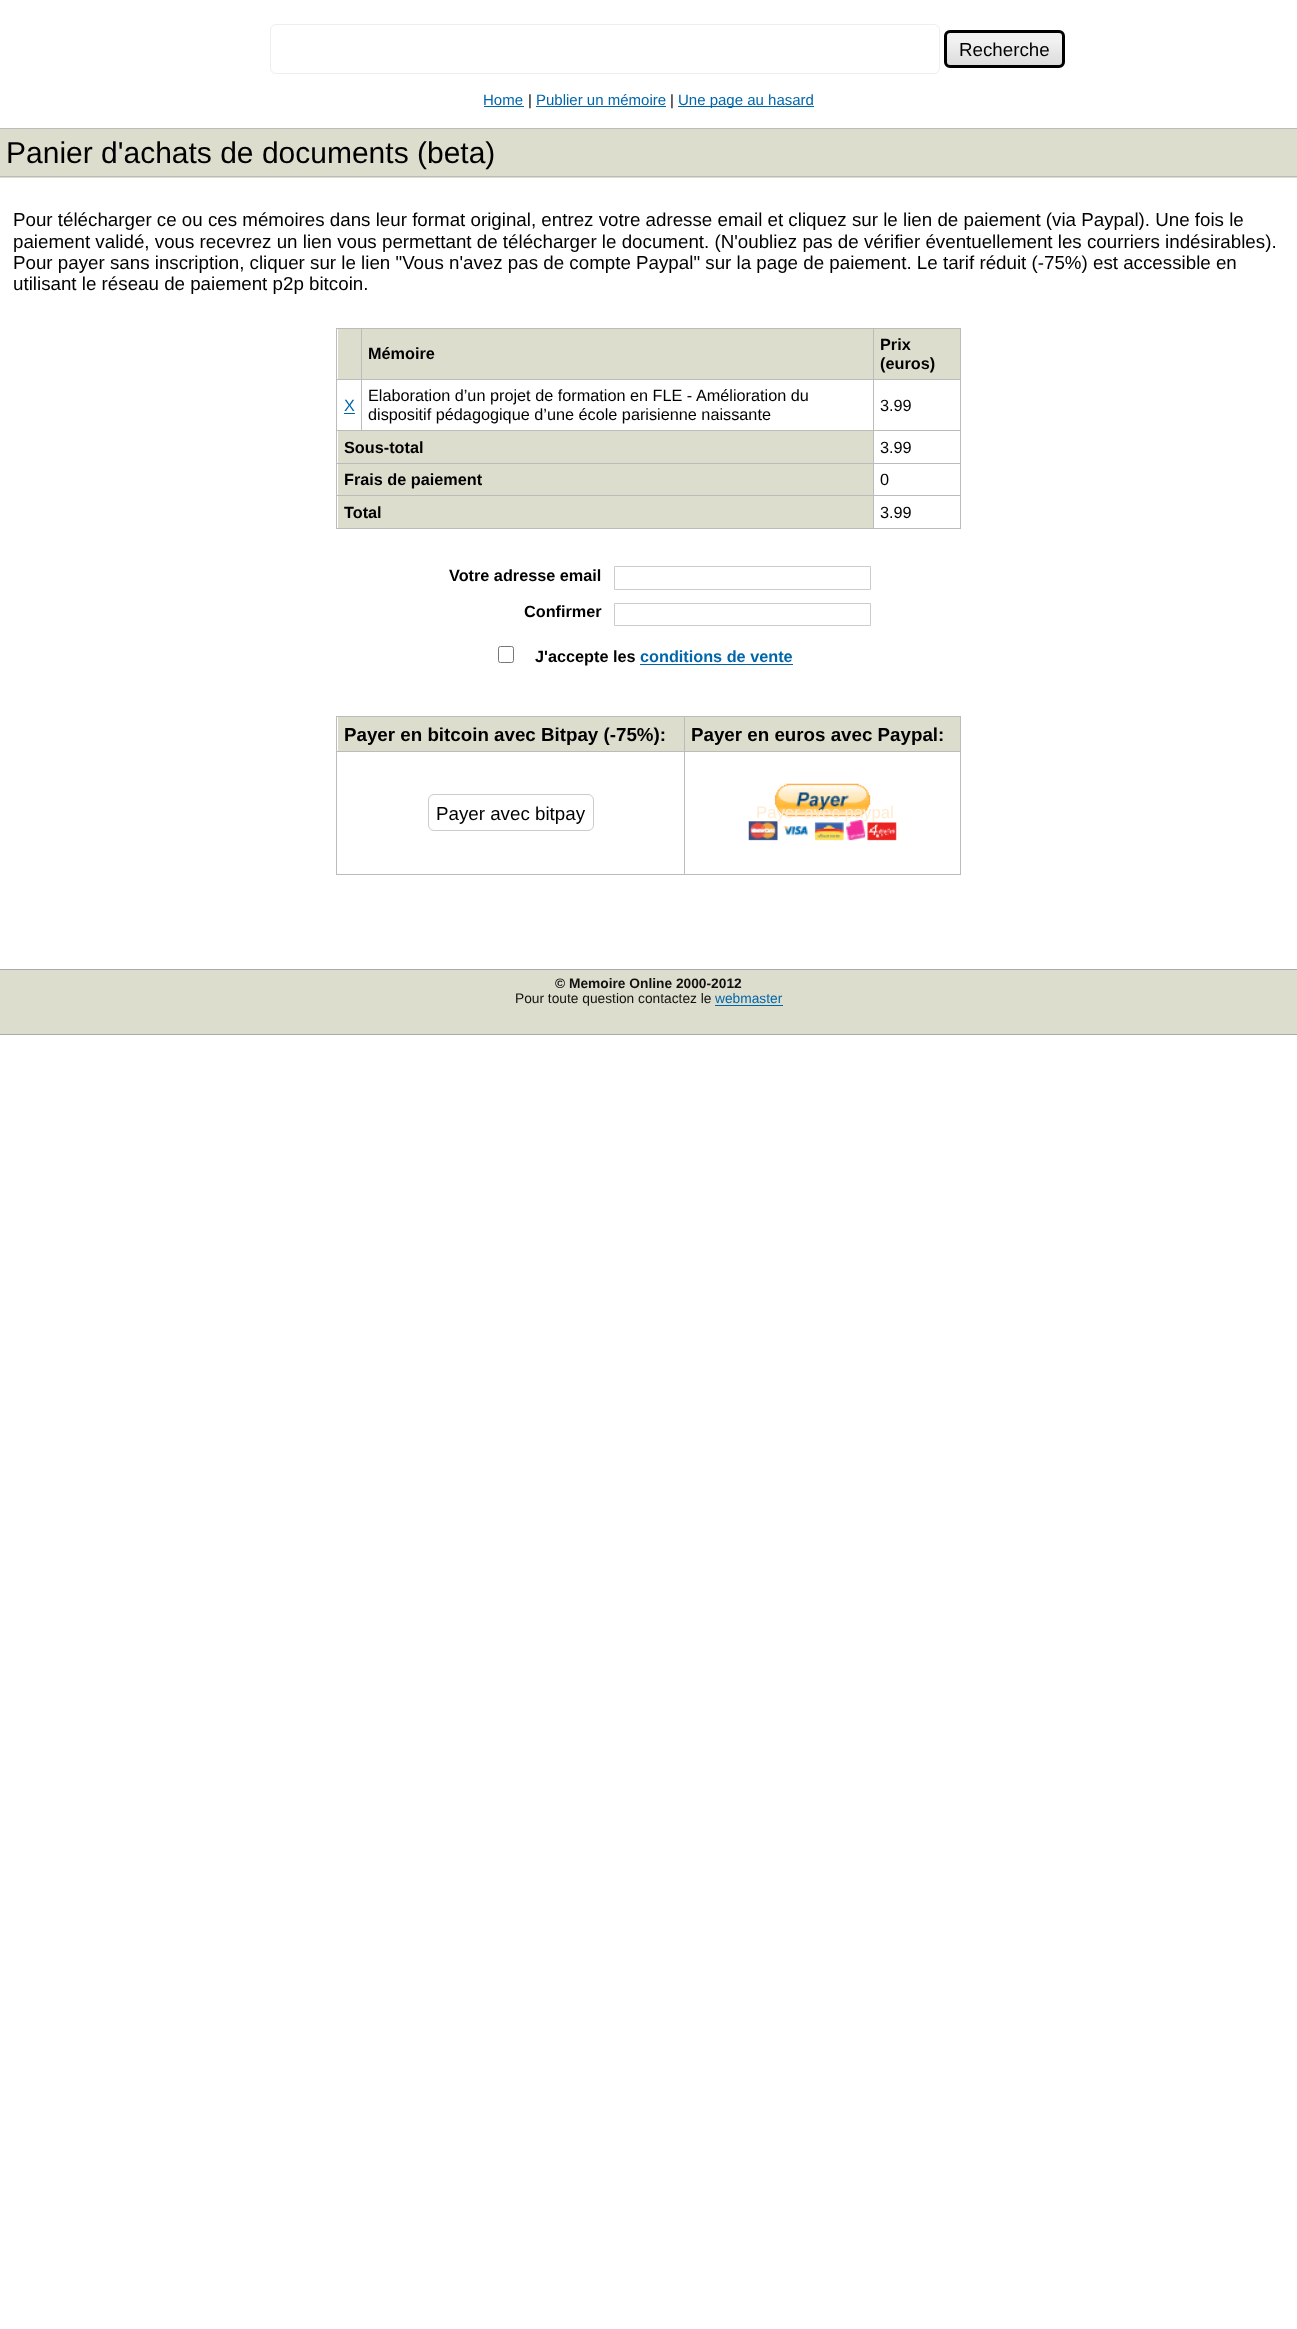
<svg xmlns="http://www.w3.org/2000/svg" width="1297" height="2329">
<style>
.a{font:18.75px Liberation Sans;fill:#000}
.b{font:15px Liberation Sans;fill:#06a}
.c{font:15px Liberation Sans;fill:#000}
.d{font:30px Liberation Sans;fill:#000}
.e{font:bold 16.25px Liberation Sans;fill:#000}
.f{font:16.25px Liberation Sans;fill:#06a}
.g{font:16.25px Liberation Sans;fill:#000}
.h{font:bold 16.25px Liberation Sans;fill:#06a}
.i{font:bold 18.75px Liberation Sans;fill:#000}
.j{font:16.75px Liberation Sans;fill:#feecd0}
.k{font:bold 13.75px Liberation Sans;fill:#111}
.l{font:13.75px Liberation Sans;fill:#111}
.m{font:13.75px Liberation Sans;fill:#06a}
</style>
<rect width="100%" height="100%" fill="#fff"/>
<rect fill="none" stroke="#eee" x="270.5" y="24.5" width="669" height="49" rx="5.5"/>
<image href="1.png" x="944" y="30" width="121" height="38"/>
<rect fill="none" stroke="#000" stroke-width="3" x="945.5" y="31.5" width="118" height="35" rx="4.5"/>
<path fill="#06a" d="M484 106h40v1H484z"/>
<path fill="#06a" d="M536 106h130v1H536z"/>
<path fill="#06a" d="M678 106h136v1H678z"/>
<path fill="#ddddcd" d="M0 129h1297v49H0z"/>
<path fill="#bbb" d="M0 128h1297v1H0z"/>
<path fill="#bbb" d="M0 176h1297v1H0z"/>
<path fill="#ddddcd" d="M338 329h23v50H338z"/>
<path fill="#bbb" d="M873 328h88v1H873z"/>
<path fill="#bbb" d="M873 379h88v1H873z"/>
<path fill="#bbb" d="M873 430h88v1H873z"/>
<path fill="#bbb" d="M873 463h88v1H873z"/>
<path fill="#bbb" d="M873 495h88v1H873z"/>
<path fill="#bbb" d="M960 495h1v34H960z"/>
<path fill="#bbb" d="M873 528h88v1H873z"/>
<path fill="#bbb" d="M873 495h1v34H873z"/>
<path fill="#bbb" d="M336 495h538v1H336z"/>
<path fill="#bbb" d="M873 463h1v33H873z"/>
<path fill="#bbb" d="M336 463h538v1H336z"/>
<path fill="#bbb" d="M873 430h1v34H873z"/>
<path fill="#bbb" d="M336 430h538v1H336z"/>
<path fill="#bbb" d="M873 379h1v52H873z"/>
<path fill="#bbb" d="M361 379h513v1H361z"/>
<path fill="#bbb" d="M873 328h1v52H873z"/>
<path fill="#bbb" d="M361 328h513v1H361z"/>
<path fill="#bbb" d="M361 379h1v52H361z"/>
<path fill="#bbb" d="M336 379h27v1H336z"/>
<path fill="#bbb" d="M361 328h1v52H361z"/>
<path fill="#bbb" d="M336 328h27v1H336z"/>
<path fill="#bbb" d="M336 528h538v1H336z"/>
<path fill="#bbb" d="M336 495h1v34H336z"/>
<path fill="#bbb" d="M336 463h1v33H336z"/>
<path fill="#bbb" d="M336 430h1v34H336z"/>
<path fill="#bbb" d="M336 379h1v52H336z"/>
<path fill="#bbb" d="M336 328h1v52H336z"/>
<path fill="#ddddcd" d="M362 329h511v50H362z"/>
<path fill="#ddddcd" d="M874 329h86v50H874z"/>
<path fill="#bbb" d="M960 463h1v33H960z"/>
<path fill="#bbb" d="M960 430h1v34H960z"/>
<path fill="#bbb" d="M960 379h1v52H960z"/>
<path fill="#bbb" d="M960 328h1v52H960z"/>
<path fill="#06a" d="M344 413h11v1H344z"/>
<path fill="#ddddcd" d="M338 431h535v32H338z"/>
<path fill="#ddddcd" d="M338 464h535v31H338z"/>
<path fill="#ddddcd" d="M338 496h535v32H338z"/>
<path fill="none" stroke="#ccc" d="M614.5 566.5h256v23H614.5z"/>
<path fill="none" stroke="#ccc" d="M614.5 603.5h256v22H614.5z"/>
<rect fill="none" stroke="#767676" x="498.5" y="646.5" width="15" height="16" rx="2"/>
<path fill="#06a" d="M640 664h153v1H640z"/>
<path fill="#ddddcd" d="M338 717h346v34H338z"/>
<path fill="#bbb" d="M684 716h277v1H684z"/>
<path fill="#bbb" d="M684 751h277v1H684z"/>
<path fill="#bbb" d="M960 751h1v124H960z"/>
<path fill="#bbb" d="M684 874h277v1H684z"/>
<path fill="#bbb" d="M684 751h1v124H684z"/>
<path fill="#bbb" d="M336 751h349v1H336z"/>
<path fill="#bbb" d="M684 716h1v37H684z"/>
<path fill="#bbb" d="M336 716h349v1H336z"/>
<path fill="#bbb" d="M336 874h349v1H336z"/>
<path fill="#bbb" d="M336 751h1v124H336z"/>
<path fill="#bbb" d="M336 716h1v37H336z"/>
<path fill="#ddddcd" d="M685 717h275v34H685z"/>
<path fill="#bbb" d="M960 716h1v37H960z"/>
<rect fill="none" stroke="#ccc" x="428.5" y="794.5" width="165" height="36" rx="5.5"/>
<image href="2.png" x="748" y="783" width="149" height="58"/>
<path fill="#ddddcd" d="M0 970h1297v64H0z"/>
<path fill="#aaa" d="M0 969h1297v1H0z"/>
<path fill="#aaa" d="M0 1034h1297v1H0z"/>
<path fill="#06a" d="M715 1005h68v1H715z"/>
<text class="a" x="959" y="56">Recherche</text>
<text class="b" x="483" y="105">Home</text>
<text class="c" x="528" y="105">|</text>
<text class="b" x="536" y="105">Publier un mémoire</text>
<text class="c" x="670" y="105">|</text>
<text class="b" x="678" y="105">Une page au hasard</text>
<text class="d" x="6" y="163">Panier d'achats de documents (beta)</text>
<text class="a" x="13" y="226">Pour télécharger ce ou ces mémoires dans leur format original, entrez votre adresse email et cliquez sur le lien de paiement (via Paypal). Une fois le</text>
<text class="a" x="13" y="248">paiement validé, vous recevrez un lien vous permettant de télécharger le document. (N'oubliez pas de vérifier éventuellement les courriers indésirables).</text>
<text class="a" x="13" y="269">Pour payer sans inscription, cliquer sur le lien "Vous n'avez pas de compte Paypal" sur la page de paiement. Le tarif réduit (-75%) est accessible en</text>
<text class="a" x="13" y="290">utilisant le réseau de paiement p2p bitcoin.</text>
<text class="e" x="368" y="359">Mémoire</text>
<text class="e" x="880" y="350">Prix</text>
<text class="e" x="880" y="369">(euros)</text>
<text class="f" x="344" y="411">X</text>
<text class="g" x="368" y="401">Elaboration d’un projet de formation en FLE - Amélioration du</text>
<text class="g" x="368" y="420">dispositif pédagogique d’une école parisienne naissante</text>
<text class="g" x="880" y="411">3.99</text>
<text class="e" x="344" y="453">Sous-total</text>
<text class="g" x="880" y="453">3.99</text>
<text class="e" x="344" y="485">Frais de paiement</text>
<text class="g" x="880" y="485">0</text>
<text class="e" x="344" y="518">Total</text>
<text class="g" x="880" y="518">3.99</text>
<text class="e" x="449" y="581">Votre adresse email</text>
<text class="e" x="524" y="617">Confirmer</text>
<text class="e" x="535" y="662">J'accepte les</text>
<text class="h" x="640" y="662">conditions de vente</text>
<text class="i" x="344" y="741">Payer en bitcoin avec Bitpay (-75%):</text>
<text class="i" x="691" y="741">Payer en euros avec Paypal:</text>
<text class="a" x="436" y="820">Payer avec bitpay</text>
<text class="j" x="756" y="818">Payer avec paypal</text>
<text class="k" x="555" y="988">© Memoire Online 2000-2012</text>
<text class="l" x="515" y="1003">Pour toute question contactez le</text>
<text class="m" x="715" y="1003">webmaster</text>
</svg>
